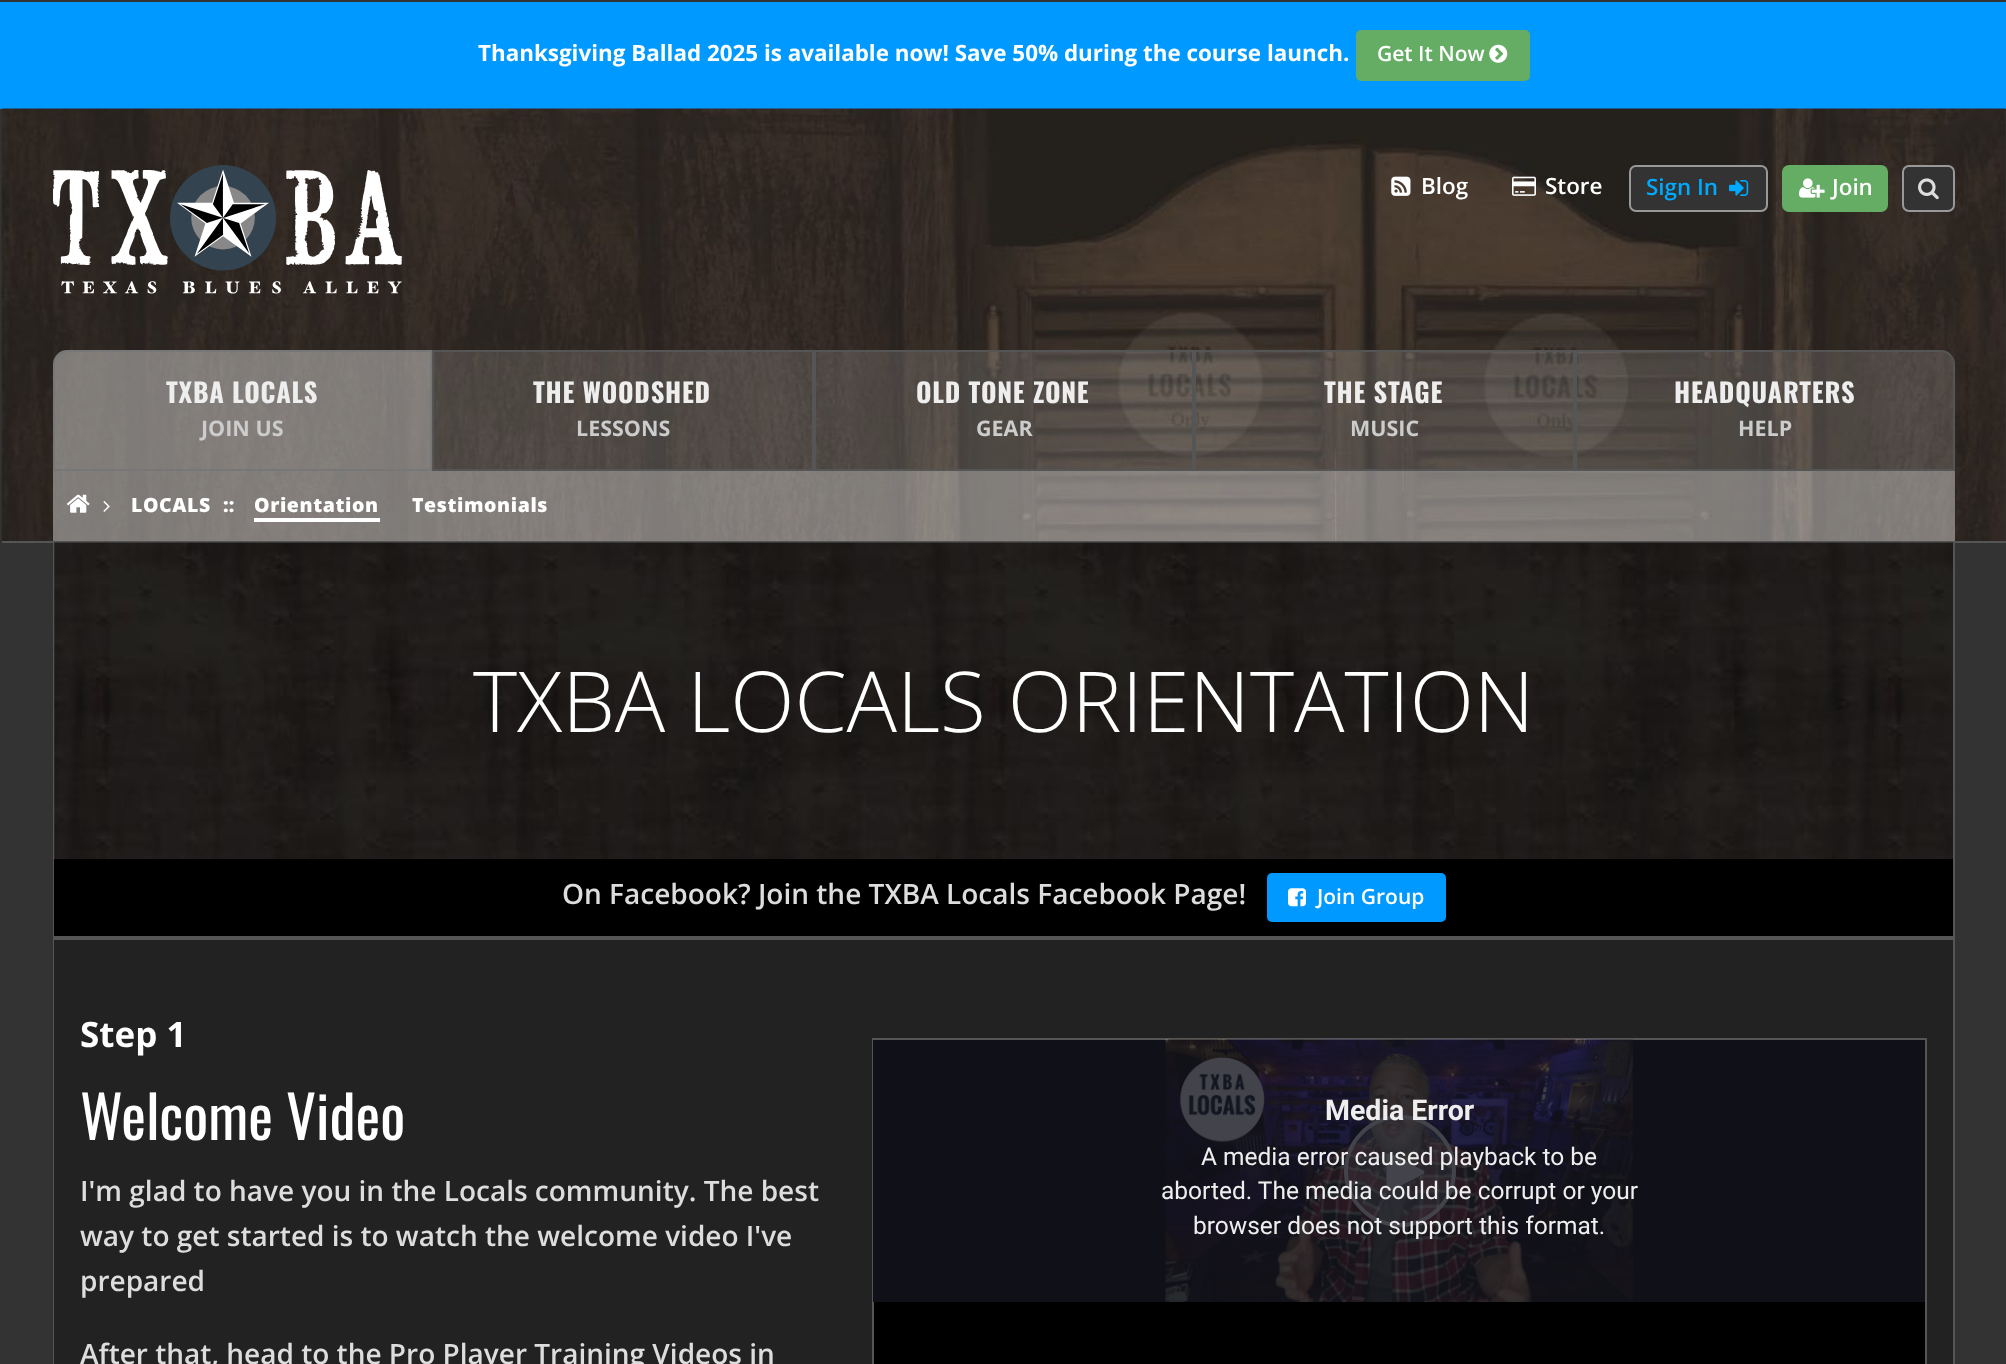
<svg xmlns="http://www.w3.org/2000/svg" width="2006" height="1364">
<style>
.a{font:bold 22.4px Open Sans;fill:#fff}
.b{font:600 21px Open Sans;fill:#fff}
.c{font:600 22.4px Open Sans;fill:#fff}
.d{font:600 22.4px Open Sans;fill:#0af}
.e{font:bold 26.5px Oswald;letter-spacing:0.75px;fill:#eee}
.f{font:bold 21.5px Open Sans;fill:#ccc}
.g{font:800 19.5px Open Sans;letter-spacing:0.6px;fill:#fff}
.h{font:800 19.5px Open Sans;fill:#fff}
.i{font:300 84px Open Sans;fill:#fff}
.j{font:600 28px Open Sans;fill:#ddd}
.k{font:bold 35px Open Sans;fill:#fff}
.l{font:58.75px Oswald;fill:#fff}
.m{font:bold 28.5px Roboto;fill:#eee}
.n{font:24.5px Roboto;fill:#eee}
</style>
<rect width="100%" height="100%" fill="#333"/>
<path fill="#09f" d="M0 2h2006v107H0z"/>
<rect fill="#65ac65" x="1356" y="30" width="174" height="51" rx="5"/>
<image href="1.png" x="1489" y="44" width="19" height="19"/>
<image href="2.png" x="1" y="108" width="2005" height="435"/>
<path fill="#555" d="M2 541h2004v2H2z"/>
<image href="3.png" x="53" y="165" width="349" height="129"/>
<image href="4.png" x="1391" y="176" width="20" height="20"/>
<image href="5.png" x="1512" y="176" width="24" height="20"/>
<rect fill="#333" stroke="#999" stroke-width="2" x="1630" y="166" width="137" height="45" rx="6"/>
<image href="6.png" x="1729" y="180" width="20" height="16"/>
<rect fill="#65ac65" stroke="#65ac65" stroke-width="2" x="1783" y="166" width="104" height="45" rx="6"/>
<image href="7.png" x="1799" y="178" width="26" height="20"/>
<rect fill="#333" stroke="#999" stroke-width="2" x="1903" y="166" width="51" height="45" rx="6"/>
<image href="8.png" x="1918" y="178" width="21" height="22"/>
<path fill="#ffffff66" stroke="#777" stroke-width="2" d="M67 351h364v119h-377v-106c0-7 6-13 13-13z"/>
<path fill="#ffffff26" stroke="#555" stroke-width="2" d="M433 351h380v119H433z"/>
<path fill="#ffffff26" stroke="#555" stroke-width="2" d="M815 351h378v119H815z"/>
<path fill="#ffffff26" stroke="#555" stroke-width="2" d="M1195 351h379v119H1195z"/>
<path fill="#ffffff26" stroke="#555" stroke-width="2" d="M1576 351h365c7 0 13 6 13 13v106h-378z"/>
<path fill="#ffffff66" d="M53 471h1902v70H53z"/>
<image href="9.png" x="66" y="494" width="24" height="19"/>
<image href="10.png" x="103" y="501" width="7" height="11"/>
<path fill="#fff" d="M254 518h126v4H254z"/>
<path fill="#555" d="M1953 543h2v821H1953z"/>
<path fill="#555" d="M53 543h2v821H53z"/>
<image href="11.png" x="54" y="542" width="1899" height="317"/>
<path fill="#000" d="M54 859h1899v77H54z"/>
<path fill="#555" d="M54 936h1899v4H54z"/>
<rect fill="#09f" x="1267" y="873" width="179" height="49" rx="5"/>
<image href="12.png" x="1288" y="888" width="18" height="19"/>
<path fill="#222" d="M54 940h1899v424H54z"/>
<path fill="#000" d="M874 1302h1051v62H874z"/>
<path fill="none" stroke="#555" stroke-width="2" d="M873 1039h1053v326H873z"/>
<path fill="#000" d="M873 1040h1052v262H873z"/>
<image href="13.png" x="1165" y="1039" width="468" height="263"/>
<circle fill="#ffffff4d" stroke="#fff" stroke-width="4" cx="1400" cy="1171" r="54"/>
<image href="14.png" x="1386" y="1153" width="39" height="37"/>
<path fill="#14141ecc" d="M873 1040h1052v262H873z"/>
<text class="a" x="478" y="61">Thanksgiving Ballad 2025 is available now! Save 50% during the course launch.</text>
<text class="b" x="1377" y="61">Get It Now</text>
<text class="c" x="1421" y="194">Blog</text>
<text class="c" x="1545" y="194">Store</text>
<text class="d" x="1646" y="195">Sign In</text>
<text class="c" x="1832" y="195">Join</text>
<text class="e" x="166" y="403">TXBA LOCALS</text>
<text class="f" x="201" y="436">JOIN US</text>
<text class="e" x="533" y="403">THE WOODSHED</text>
<text class="f" x="576" y="436">LESSONS</text>
<text class="e" x="916" y="403">OLD TONE ZONE</text>
<text class="f" x="976" y="436">GEAR</text>
<text class="e" x="1324" y="403">THE STAGE</text>
<text class="f" x="1350" y="436">MUSIC</text>
<text class="e" x="1674" y="403">HEADQUARTERS</text>
<text class="f" x="1738" y="436">HELP</text>
<text class="g" x="131" y="512">LOCALS</text>
<text class="h" x="223" y="512">::</text>
<text class="g" x="254" y="512">Orientation</text>
<text class="g" x="412" y="512">Testimonials</text>
<text class="i" x="473" y="732">TXBA LOCALS ORIENTATION</text>
<text class="j" x="562" y="904">On Facebook? Join the TXBA Locals Facebook Page!</text>
<text class="b" x="1317" y="904">Join Group</text>
<text class="k" x="80" y="1047">Step 1</text>
<text class="l" x="80" y="1140">Welcome Video</text>
<text class="j" x="80" y="1201">I'm glad to have you in the Locals community. The best</text>
<text class="j" x="80" y="1246">way to get started is to watch the welcome video I've</text>
<text class="j" x="80" y="1291">prepared</text>
<text class="j" x="80" y="1364">After that, head to the Pro Player Training Videos in</text>
<text class="m" x="1325" y="1120">Media Error</text>
<text class="n" x="1201" y="1165">A media error caused playback to be</text>
<text class="n" x="1161" y="1199">aborted. The media could be corrupt or your</text>
<text class="n" x="1193" y="1234">browser does not support this format.</text>
</svg>
